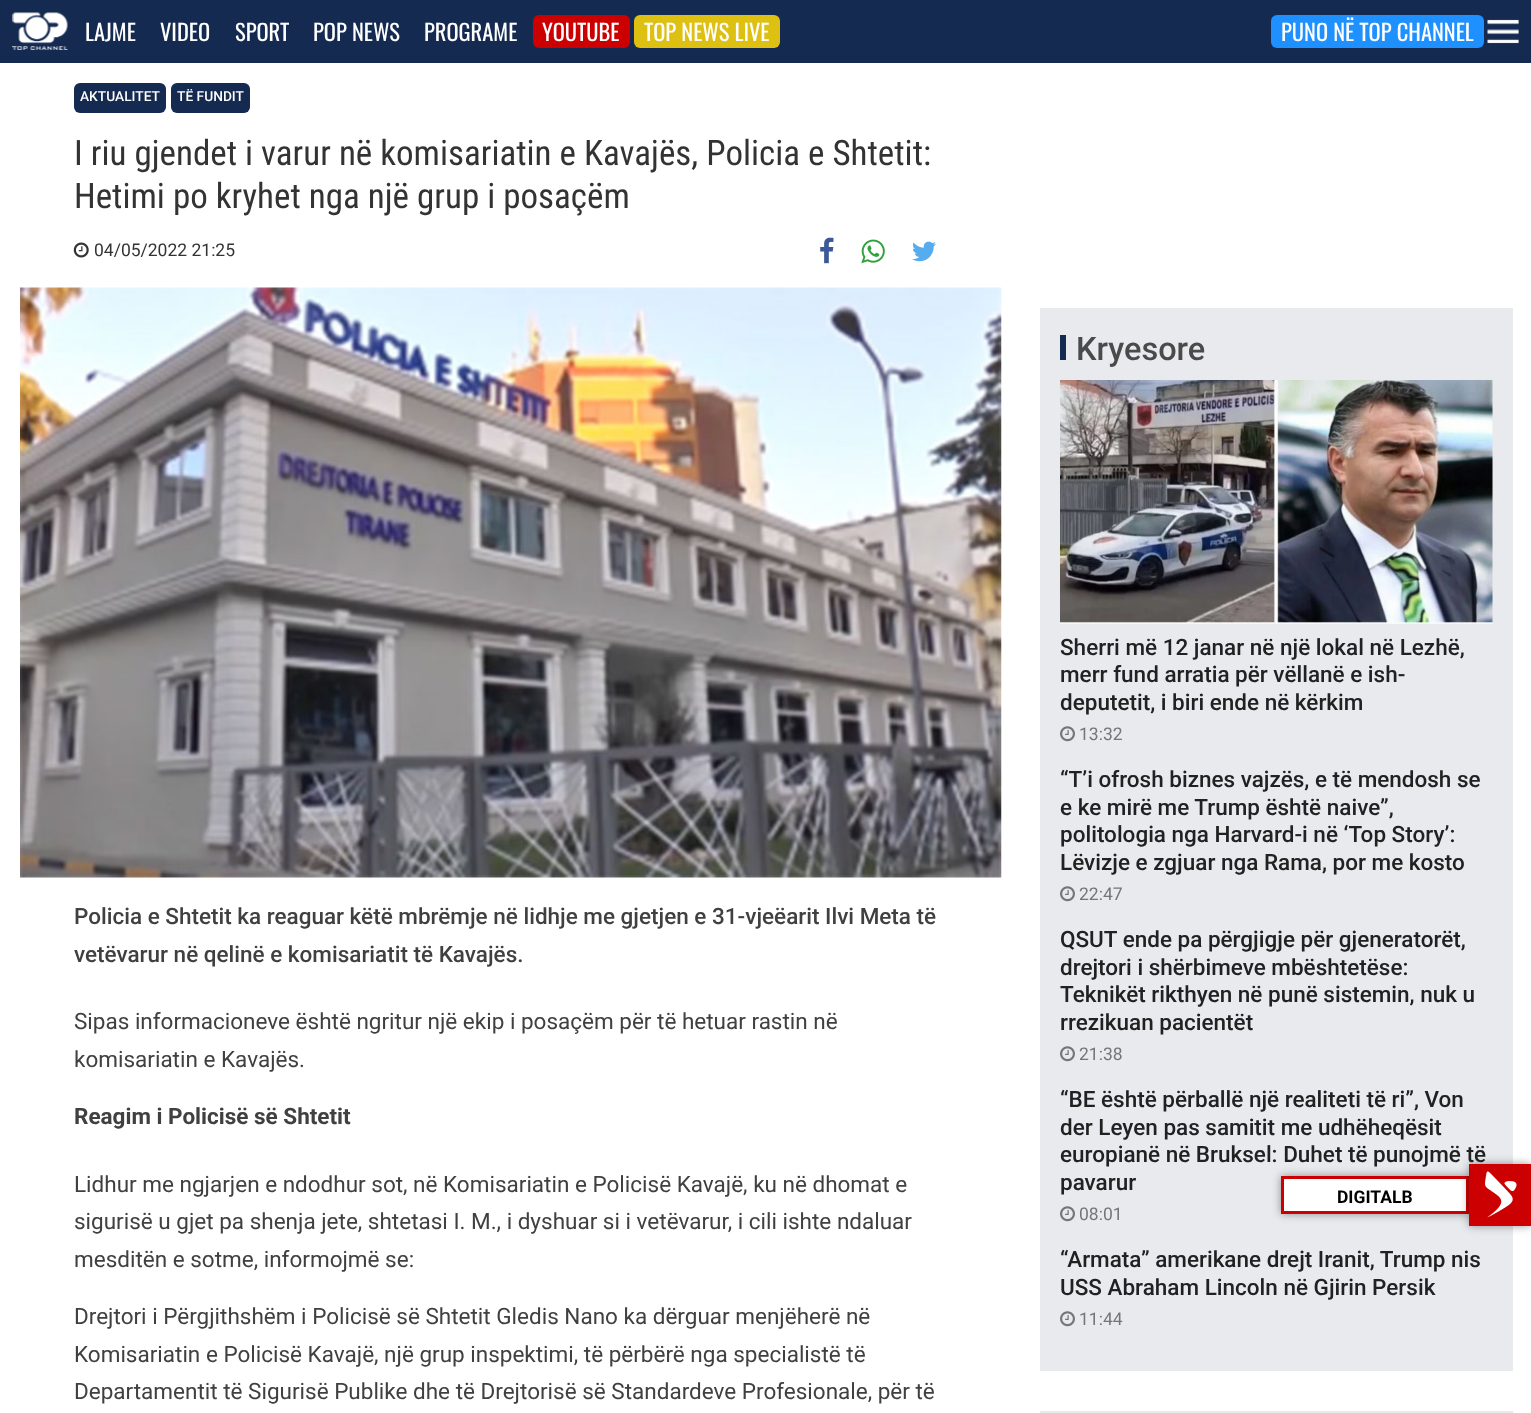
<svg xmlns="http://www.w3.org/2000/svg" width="1531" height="1413">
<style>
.a{font:22.5px Oswald;fill:#fff}
.b{font:500 13.75px Roboto;fill:#fff}
.c{font:35px Roboto Condensed;fill:#333}
.d{font:17.5px Roboto;fill:#333}
.e{font:500 22.5px Roboto;fill:#404040}
.f{font:22.5px Roboto;fill:#404040}
.g{font:bold 22.5px Roboto;fill:#404040}
.h{font:500 32.5px Roboto;fill:#4a4a4a}
.i{font:500 22.5px Roboto;fill:#212121}
.j{font:17.5px Roboto;fill:#767676}
.k{font:bold 17.5px Roboto;fill:#000}
</style>
<rect width="100%" height="100%" fill="#fff"/>
<path fill="#142a51" d="M0 0h1531v63H0z"/>
<image href="1.png" x="12" y="12" width="56" height="38"/>
<rect fill="#c00" x="533" y="15" width="97" height="33" rx="6"/>
<rect fill="#dec013" x="634" y="15" width="146" height="33" rx="6"/>
<rect fill="#1e90ff" x="1271" y="15" width="213" height="33" rx="6"/>
<image href="2.png" x="1487" y="19" width="32" height="25"/>
<rect fill="#142a51" x="74" y="83" width="92" height="30" rx="6"/>
<rect fill="#142a51" x="171" y="83" width="79" height="30" rx="6"/>
<image href="3.png" x="73" y="242" width="16" height="16"/>
<image href="4.png" x="820" y="237" width="14" height="27"/>
<image href="5.png" x="861" y="239" width="24" height="25"/>
<image href="6.png" x="912" y="241" width="24" height="21"/>
<image href="7.png" x="20" y="287" width="982" height="591"/>
<path fill="#e8eaee" d="M1040 308h473v1063H1040z"/>
<path fill="#142a51" d="M1060 335h6v25H1060z"/>
<image href="8.png" x="1060" y="380" width="433" height="244"/>
<image href="9.png" x="1060" y="726" width="15" height="16"/>
<image href="9.png" x="1060" y="886" width="15" height="16"/>
<image href="9.png" x="1060" y="1046" width="15" height="16"/>
<image href="9.png" x="1060" y="1206" width="15" height="16"/>
<image href="9.png" x="1060" y="1311" width="15" height="16"/>
<path fill="#e8eaee" d="M1040 1411h473v2H1040z"/>
<path fill="#00000066" filter="blur(4px)" d="M1281 1176h188v38H1281z"/>
<path fill="#fff" stroke="#c00" stroke-width="3" d="M1282.5 1177.5h185v35H1282.5z"/>
<path fill="#00000066" filter="blur(4px)" d="M1469 1164h62v62H1469z"/>
<text class="a" x="85" y="41">LAJME</text>
<text class="a" x="160" y="41">VIDEO</text>
<text class="a" x="235" y="41">SPORT</text>
<text class="a" x="313" y="41">POP NEWS</text>
<text class="a" x="424" y="41">PROGRAME</text>
<text class="a" x="542" y="41">YOUTUBE</text>
<text class="a" x="644" y="41">TOP NEWS LIVE</text>
<text class="a" x="1281" y="41">PUNO NË TOP CHANNEL</text>
<text class="b" x="80" y="101">AKTUALITET</text>
<text class="b" x="177" y="101">TË FUNDIT</text>
<text class="c" x="74" y="165">I riu gjendet i varur në komisariatin e Kavajës, Policia e Shtetit:</text>
<text class="c" x="74" y="208">Hetimi po kryhet nga një grup i posaçëm</text>
<text class="d" x="94" y="256">04/05/2022 21:25</text>
<text class="e" x="74" y="924">Policia e Shtetit ka reaguar këtë mbrëmje në lidhje me gjetjen e 31-vjeëarit Ilvi Meta të</text>
<text class="e" x="74" y="962">vetëvarur në qelinë e komisariatit të Kavajës.</text>
<text class="f" x="74" y="1029">Sipas informacioneve është ngritur një ekip i posaçëm për të hetuar rastin në</text>
<text class="f" x="74" y="1067">komisariatin e Kavajës.</text>
<text class="g" x="74" y="1124">Reagim i Policisë së Shtetit</text>
<text class="f" x="74" y="1192">Lidhur me ngjarjen e ndodhur sot, në Komisariatin e Policisë Kavajë, ku në dhomat e</text>
<text class="f" x="74" y="1229">sigurisë u gjet pa shenja jete, shtetasi I. M., i dyshuar si i vetëvarur, i cili ishte ndaluar</text>
<text class="f" x="74" y="1267">mesditën e sotme, informojmë se:</text>
<text class="f" x="74" y="1324">Drejtori i Përgjithshëm i Policisë së Shtetit Gledis Nano ka dërguar menjëherë në</text>
<text class="f" x="74" y="1362">Komisariatin e Policisë Kavajë, një grup inspektimi, të përbërë nga specialistë të</text>
<text class="f" x="74" y="1399">Departamentit të Sigurisë Publike dhe të Drejtorisë së Standardeve Profesionale, për të</text>
<text class="h" x="1076" y="360">Kryesore</text>
<text class="i" x="1060" y="655">Sherri më 12 janar në një lokal në Lezhë,</text>
<text class="i" x="1060" y="682">merr fund arratia për vëllanë e ish-</text>
<text class="i" x="1060" y="710">deputetit, i biri ende në kërkim</text>
<text class="j" x="1079" y="740">13:32</text>
<text class="i" x="1060" y="787">“T’i ofrosh biznes vajzës, e të mendosh se</text>
<text class="i" x="1060" y="815">e ke mirë me Trump është naive”,</text>
<text class="i" x="1060" y="842">politologia nga Harvard-i në ‘Top Story’:</text>
<text class="i" x="1060" y="870">Lëvizje e zgjuar nga Rama, por me kosto</text>
<text class="j" x="1079" y="900">22:47</text>
<text class="i" x="1060" y="947">QSUT ende pa përgjigje për gjeneratorët,</text>
<text class="i" x="1060" y="975">drejtori i shërbimeve mbështetëse:</text>
<text class="i" x="1060" y="1002">Teknikët rikthyen në punë sistemin, nuk u</text>
<text class="i" x="1060" y="1030">rrezikuan pacientët</text>
<text class="j" x="1079" y="1060">21:38</text>
<text class="i" x="1060" y="1107">“BE është përballë një realiteti të ri”, Von</text>
<text class="i" x="1060" y="1135">der Leyen pas samitit me udhëheqësit</text>
<text class="i" x="1060" y="1162">europianë në Bruksel: Duhet të punojmë të</text>
<text class="i" x="1060" y="1190">pavarur</text>
<text class="j" x="1079" y="1220">08:01</text>
<text class="i" x="1060" y="1267">“Armata” amerikane drejt Iranit, Trump nis</text>
<text class="i" x="1060" y="1295">USS Abraham Lincoln në Gjirin Persik</text>
<text class="j" x="1079" y="1325">11:44</text>
<text class="k" x="1337" y="1203">DIGITALB</text>
<path fill="#c00" d="M1469 1164h62v62H1469z"/>
<image href="10.png" x="1485" y="1171" width="32" height="47"/>
</svg>
